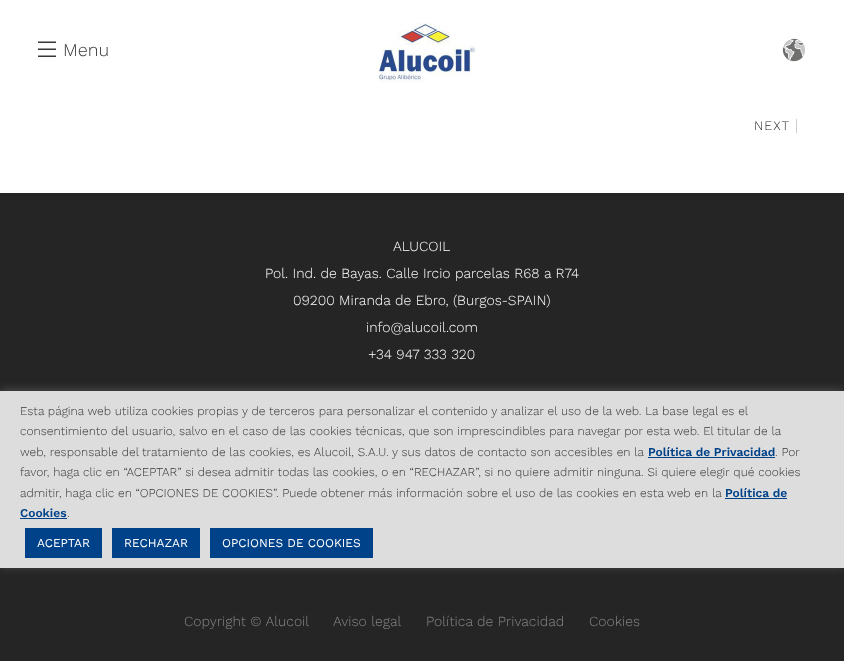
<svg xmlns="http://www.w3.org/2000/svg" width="844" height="661">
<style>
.a{font:300 18px Work Sans;fill:#373737}
.b{font:300 13px Work Sans;letter-spacing:1px;fill:#2d2d2d}
.c{font:300 14px Work Sans;fill:#fff}
.d{font:300 14px Work Sans;fill:#858585}
.e{font:300 12px Work Sans;fill:#373737}
.f{font:600 12px Work Sans;fill:#004289}
.g{font:12px Work Sans;fill:#fff}
</style>
<rect width="100%" height="100%" fill="#fff"/>
<path fill="#373737" d="M38 42h18v1H38z"/>
<path fill="#9b9b9b" d="M38 41h18v1H38z"/>
<path fill="#373737" d="M38 49h18v1H38z"/>
<path fill="#9b9b9b" d="M38 48h18v1H38z"/>
<path fill="#373737" d="M38 56h18v1H38z"/>
<path fill="#9b9b9b" d="M38 55h18v1H38z"/>
<image href="1.png" x="375" y="22" width="101" height="61"/>
<image href="2.png" x="782" y="38" width="23" height="24"/>
<path fill="#cbcccd" d="M796 119h1v14H796z"/>
<path fill="#252525" d="M0 193h844v198H0z"/>
<path fill="#252525" d="M0 568h844v93H0z"/>
<path fill="#acabab4d" filter="blur(5px)" d="M0 390h844v177H0z"/>
<path fill="#ddd" d="M0 391h844v177H0z"/>
<path fill="#004289" d="M648 457h127v1H648z"/>
<path fill="#004289" d="M725 498h62v1H725z"/>
<path fill="#004289" d="M20 518h47v1H20z"/>
<path fill="#004289" d="M25 528h77v30H25z"/>
<path fill="#004289" d="M112 528h88v30H112z"/>
<path fill="#004289" d="M210 528h163v30H210z"/>
<text class="a" x="63" y="56">Menu</text>
<text class="b" x="754" y="130">NEXT</text>
<text class="c" x="393" y="251">ALUCOIL</text>
<text class="c" x="265" y="278">Pol. Ind. de Bayas. Calle Ircio parcelas R68 a R74</text>
<text class="c" x="293" y="305">09200 Miranda de Ebro, (Burgos-SPAIN)</text>
<text class="c" x="366" y="332">info@alucoil.com</text>
<text class="c" x="368" y="359">+34 947 333 320</text>
<text class="d" x="184" y="626">Copyright © Alucoil</text>
<text class="d" x="333" y="626">Aviso legal</text>
<text class="d" x="426" y="626">Política de Privacidad</text>
<text class="d" x="589" y="626">Cookies</text>
<text class="e" x="20" y="415">Esta página web utiliza cookies propias y de terceros para personalizar el contenido y analizar el uso de la web. La base legal es el</text>
<text class="e" x="20" y="435">consentimiento del usuario, salvo en el caso de las cookies técnicas, que son imprescindibles para navegar por esta web. El titular de la</text>
<text class="e" x="20" y="456">web, responsable del tratamiento de las cookies, es Alucoil, S.A.U. y sus datos de contacto son accesibles en la</text>
<text class="f" x="648" y="456">Política de Privacidad</text>
<text class="e" x="775" y="456">. Por</text>
<text class="e" x="20" y="476">favor, haga clic en “ACEPTAR” si desea admitir todas las cookies, o en “RECHAZAR”, si no quiere admitir ninguna. Si quiere elegir qué cookies</text>
<text class="e" x="20" y="497">admitir, haga clic en “OPCIONES DE COOKIES”. Puede obtener más información sobre el uso de las cookies en esta web en la</text>
<text class="f" x="725" y="497">Política de</text>
<text class="f" x="20" y="517">Cookies</text>
<text class="e" x="67" y="517">.</text>
<text class="g" x="37" y="547">ACEPTAR</text>
<text class="g" x="124" y="547">RECHAZAR</text>
<text class="g" x="222" y="547">OPCIONES DE COOKIES</text>
</svg>
